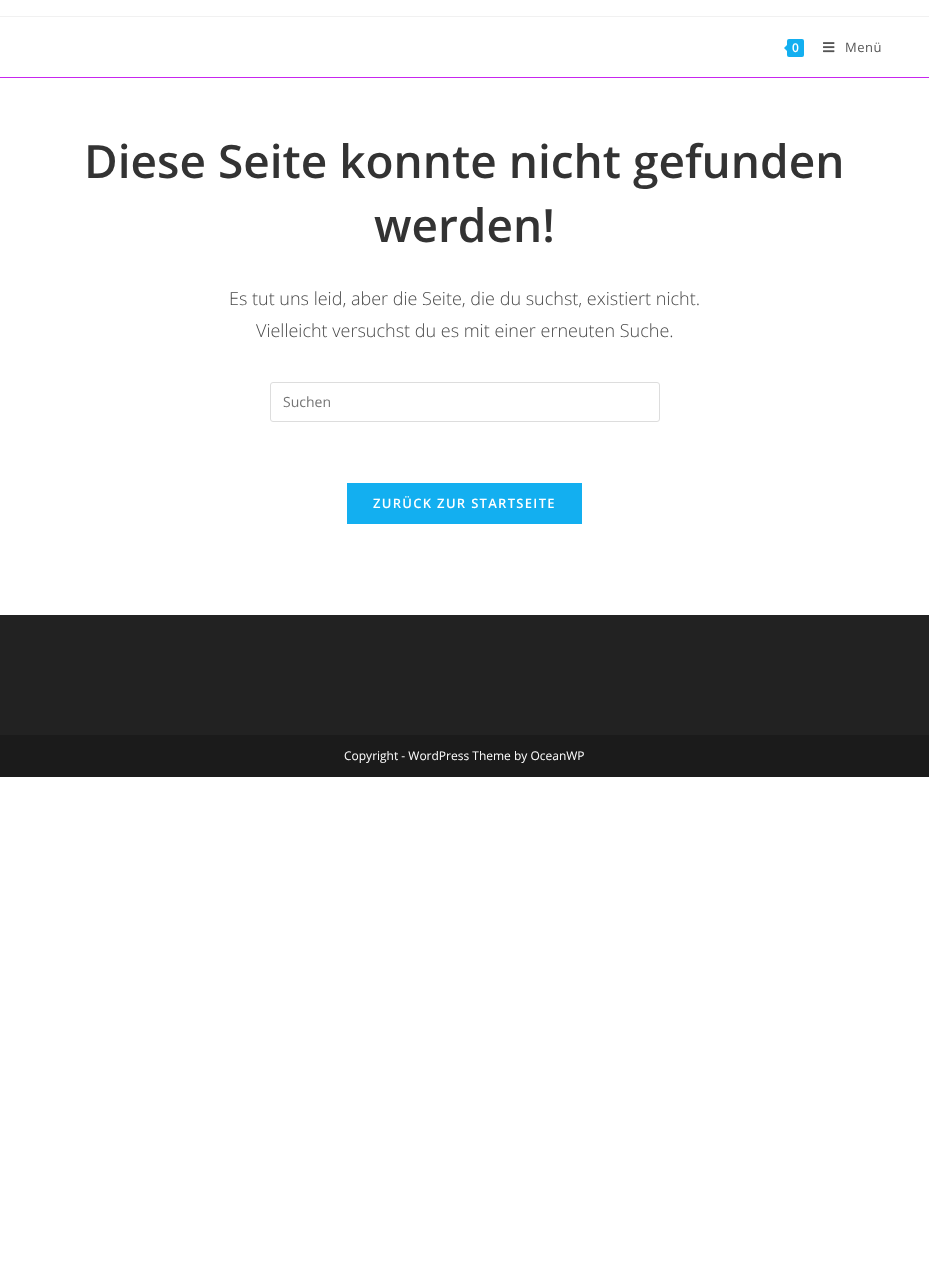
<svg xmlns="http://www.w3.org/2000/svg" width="929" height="1268">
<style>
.a{font:600 12px Open Sans;letter-spacing:0.5px;fill:#fff}
.b{font:13px Open Sans;letter-spacing:0.5px;fill:#555}
.c{font:600 46px Open Sans;fill:#333}
.d{font:300 18px Open Sans;fill:#4a4a4a}
.e{font:14px Open Sans;fill:#757575}
.f{font:600 13px Open Sans;letter-spacing:1.3px;fill:#fff}
.g{font:12px Open Sans;fill:#fff}
</style>
<rect width="100%" height="100%" fill="#fff"/>
<path fill="#f1f1f1" d="M0 16h929v1H0z"/>
<path fill="#c726ef" d="M0 77h929v1H0z"/>
<rect fill="#13aff0" x="787" y="39" width="17" height="18" rx="2"/>
<path fill="#13aff0" d="M789 43v10l-5-5z"/>
<image href="1.png" x="823" y="42" width="12" height="11"/>
<rect fill="none" stroke="#ddd" x="270.5" y="382.5" width="389" height="39" rx="2.5"/>
<path fill="#13aff0" d="M347 483h235v41H347z"/>
<path fill="#222" d="M0 615h929v120H0z"/>
<path fill="#1b1b1b" d="M0 735h929v42H0z"/>
<text class="a" x="792" y="52">0</text>
<text class="b" x="845" y="52">Menü</text>
<text class="c" x="84" y="178">Diese Seite konnte nicht gefunden</text>
<text class="c" x="374" y="242">werden!</text>
<text class="d" x="229" y="305">Es tut uns leid, aber die Seite, die du suchst, existiert nicht.</text>
<text class="d" x="256" y="337">Vielleicht versuchst du es mit einer erneuten Suche.</text>
<text class="e" x="283" y="407">Suchen</text>
<text class="f" x="373" y="508">ZURÜCK ZUR STARTSEITE</text>
<text class="g" x="344" y="760">Copyright - WordPress Theme by OceanWP</text>
</svg>
